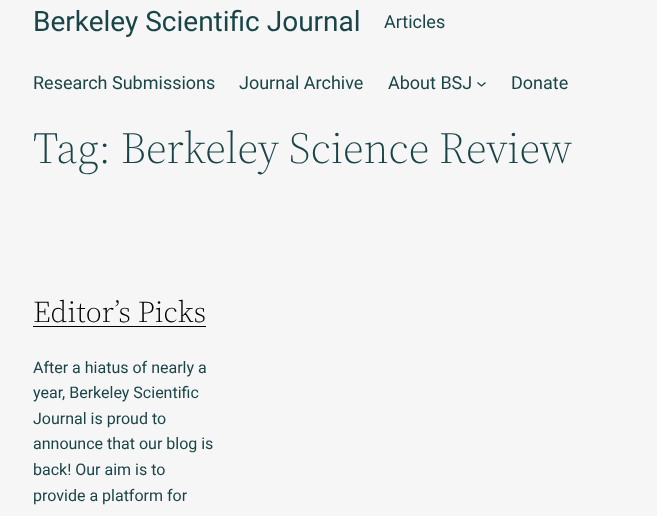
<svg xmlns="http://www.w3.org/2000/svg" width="657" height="516">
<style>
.a{font:28px Roboto;fill:#1a4548}
.b{font:18px Roboto;fill:#1a4548}
.c{font:300 44px 'Source Serif 4';fill:#1a4548}
.d{font:300 30px 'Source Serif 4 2';fill:#000}
.e{font:16px Roboto;fill:#1a4548}
</style>
<rect width="100%" height="100%" fill="#f6f6f6"/>
<path fill="none" stroke="#1a4548" stroke-width="1.3" d="M477.5 82.5l4 3.5l4-3.5"/>
<path fill="#000" d="M33 326h173v1H33z"/>
<text class="a" x="33" y="31">Berkeley Scientific Journal</text>
<text class="b" x="384" y="28">Articles</text>
<text class="b" x="33" y="89">Research Submissions</text>
<text class="b" x="239" y="89">Journal Archive</text>
<text class="b" x="388" y="89">About BSJ</text>
<text class="b" x="511" y="89">Donate</text>
<text class="c" x="33" y="163">Tag: Berkeley Science Review</text>
<text class="d" x="33" y="322">Editor’s Picks</text>
<text class="e" x="33" y="373">After a hiatus of nearly a</text>
<text class="e" x="33" y="398">year, Berkeley Scientific</text>
<text class="e" x="33" y="424">Journal is proud to</text>
<text class="e" x="33" y="449">announce that our blog is</text>
<text class="e" x="33" y="475">back! Our aim is to</text>
<text class="e" x="33" y="501">provide a platform for</text>
</svg>
